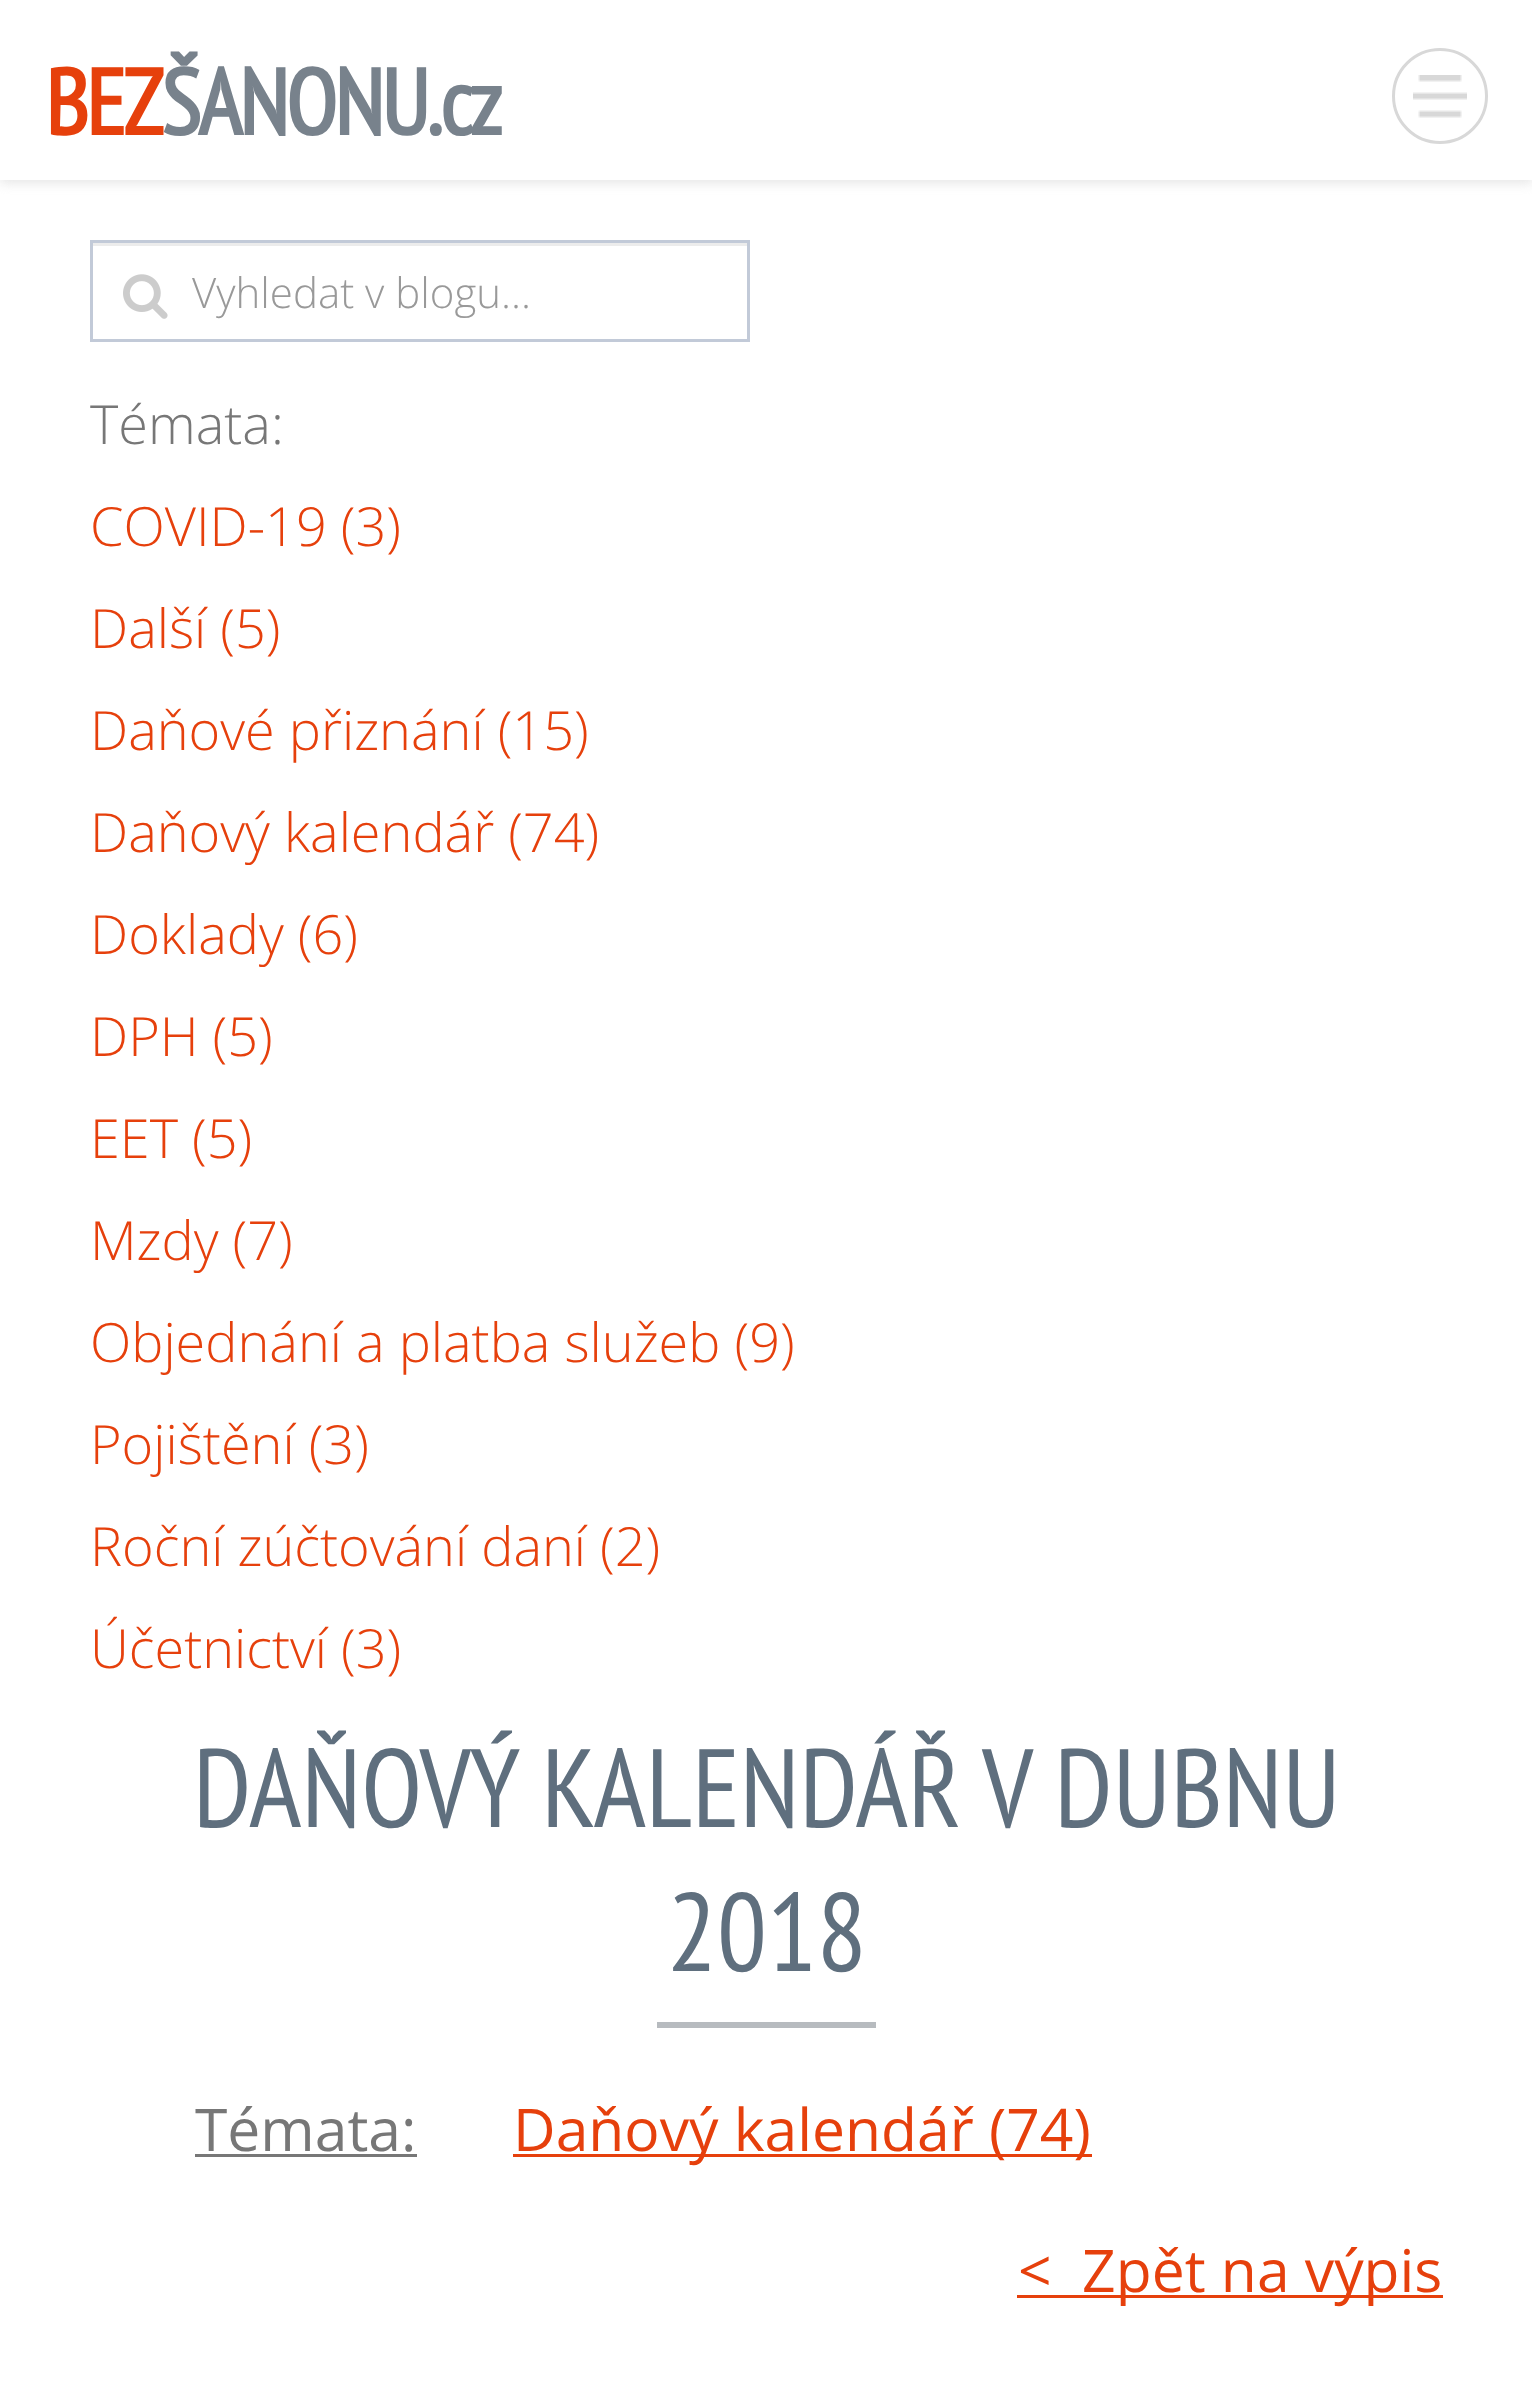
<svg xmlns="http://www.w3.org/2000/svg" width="1532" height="2402">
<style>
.a{font:bold 93px PT Sans Narrow;letter-spacing:-3px;fill:#e6400c}
.b{font:bold 93px PT Sans Narrow;letter-spacing:-3px;fill:#78828c}
.c{font:300 42px Open Sans;fill:#999}
.d{font:300 54px Open Sans;fill:#777}
.e{font:300 54px Open Sans;fill:#e6400c}
.f{font:111px PT Sans Narrow;fill:#5f6f7e}
.g{font:58.75px Open Sans;fill:#777}
.h{font:58.75px Open Sans;fill:#e6400c}
</style>
<defs>
<clipPath id="clip1"><path d="M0 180h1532v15H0z"/></clipPath>
</defs>
<rect width="100%" height="100%" fill="#fff"/>
<g clip-path="url(#clip1)">
<path fill="#e4e4e4f2" filter="blur(6px)" d="M0 3h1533v180H0z"/>
</g>
<image href="1.png" x="1413" y="75" width="54" height="43"/>
<circle fill="none" stroke="#d8d8d8" stroke-width="3" cx="1440" cy="96" r="46.5"/>
<path fill="#ececec" d="M93 243h654v3H93z"/>
<path fill="none" stroke="#c2cad8" stroke-width="3" d="M91.5 241.5h657v99H91.5z"/>
<image href="2.png" x="123" y="274" width="45" height="45"/>
<path fill="#b7bbbf" d="M657 2022h219v6H657z"/>
<path fill="#777" d="M195 2154h222v3H195z"/>
<path fill="#e6400c" d="M513 2154h579v3H513z"/>
<path fill="#e6400c" d="M1017 2295h426v3H1017z"/>
<text class="a" x="45" y="135">BEZ</text>
<text class="b" x="161" y="135">ŠANONU.cz</text>
<text class="c" x="192" y="308">Vyhledat v blogu...</text>
<text class="d" x="90" y="444">Témata:</text>
<text class="e" x="90" y="546">COVID-19 (3)</text>
<text class="e" x="90" y="648">Další (5)</text>
<text class="e" x="90" y="750">Daňové přiznání (15)</text>
<text class="e" x="90" y="852">Daňový kalendář (74)</text>
<text class="e" x="90" y="954">Doklady (6)</text>
<text class="e" x="90" y="1056">DPH (5)</text>
<text class="e" x="90" y="1158">EET (5)</text>
<text class="e" x="90" y="1260">Mzdy (7)</text>
<text class="e" x="90" y="1362">Objednání a platba služeb (9)</text>
<text class="e" x="90" y="1464">Pojištění (3)</text>
<text class="e" x="90" y="1566">Roční zúčtování daní (2)</text>
<text class="e" x="90" y="1668">Účetnictví (3)</text>
<text class="f" x="193" y="1827">DAŇOVÝ KALENDÁŘ V DUBNU</text>
<text class="f" x="667" y="1971">2018</text>
<text class="g" x="195" y="2151">Témata:</text>
<text class="h" x="513" y="2151">Daňový kalendář (74)</text>
<text class="h" xml:space="preserve" x="1018" y="2292">&lt;  Zpět na výpis</text>
</svg>
